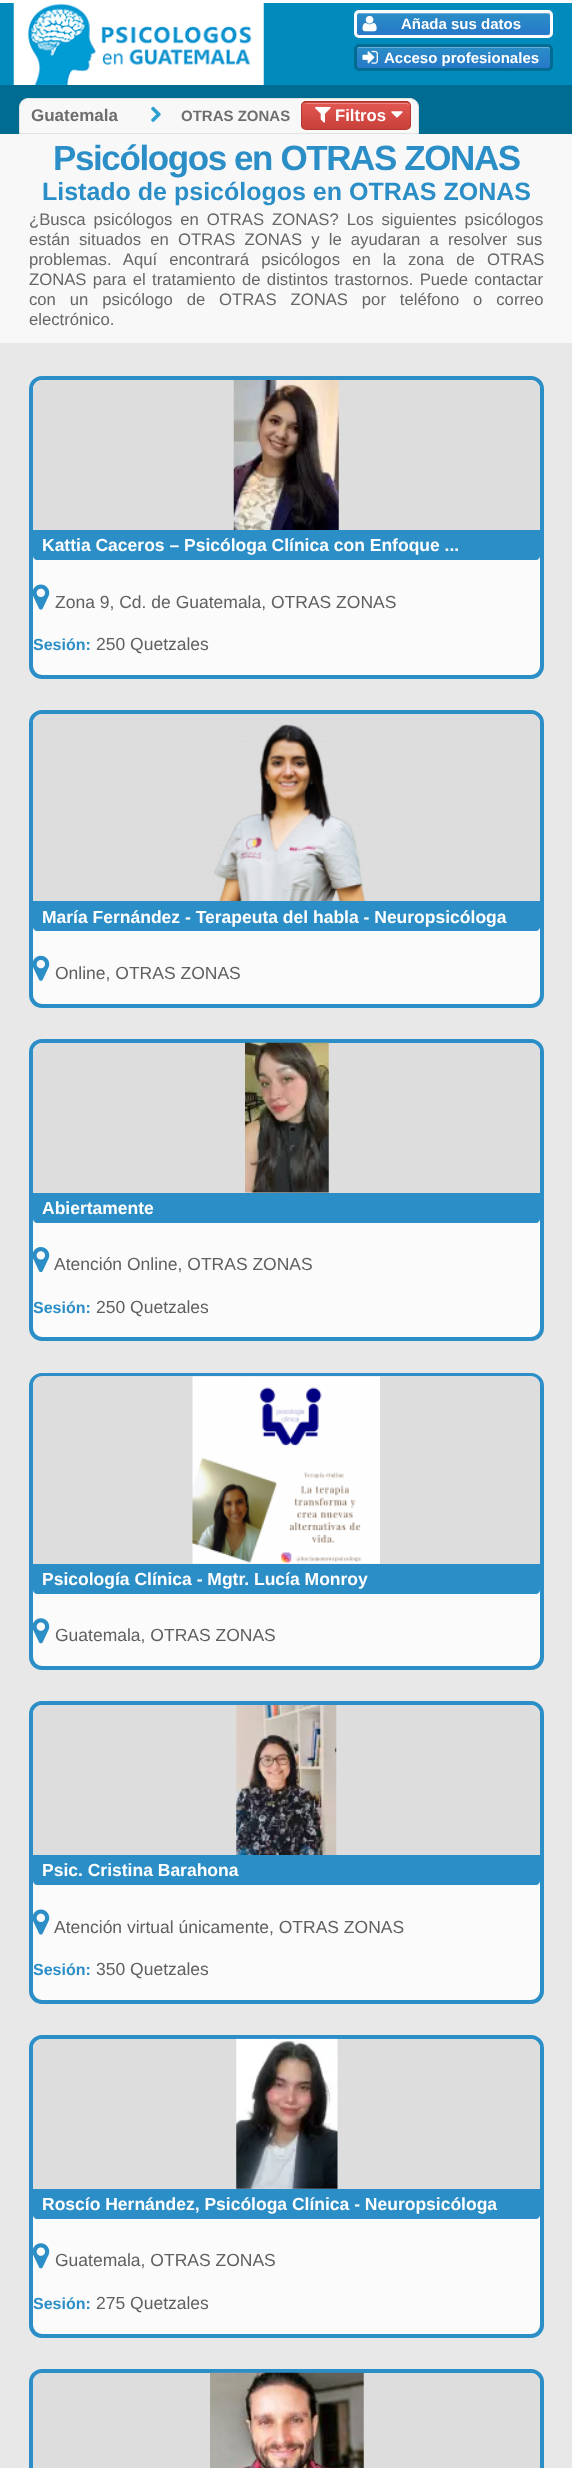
<svg xmlns="http://www.w3.org/2000/svg" width="572" height="2468">
<style>
.a{font:bold 15px Liberation Sans;fill:#fff}
.b{font:bold 17px Liberation Sans;fill:#6e6e6e}
.c{font:bold 15px Liberation Sans;fill:#6e6e6e}
.d{font:bold 16.7px Liberation Sans;fill:#fff}
.e{font:bold 35px Liberation Sans;letter-spacing:-1.4px;fill:#2b8ec7}
.f{font:bold 25px Liberation Sans;fill:#2b8ec7}
.g{font:16.7px Liberation Sans;fill:#666}
.h{font:bold 17.5px Liberation Sans;fill:#fff}
.i{font:17.5px Liberation Sans;fill:#606060}
.j{font:bold 16px Liberation Sans;fill:#2b8ec7}
</style>
<defs>
<clipPath id="clip1"><rect x="354" y="10" width="199" height="28" rx="5"/></clipPath>
<linearGradient id="g1" gradientUnits="userSpaceOnUse" x1="453" y1="35" x2="453" y2="13"><stop offset="0" stop-color="#2778c8"/><stop offset="1" stop-color="#2b8ec7"/></linearGradient>
<clipPath id="clip2"><rect x="354" y="44" width="199" height="27" rx="5"/></clipPath>
<linearGradient id="g2" gradientUnits="userSpaceOnUse" x1="453" y1="69" x2="453" y2="46"><stop offset="0" stop-color="#2778c8"/><stop offset="1" stop-color="#2b8ec7"/></linearGradient>
<clipPath id="clip3"><rect x="301" y="101" width="110" height="29" rx="5"/></clipPath>
<linearGradient id="g3" gradientUnits="userSpaceOnUse" x1="356" y1="103" x2="356" y2="76"><stop offset="0" stop-color="#c74039"/><stop offset="1" stop-color="#e35752"/></linearGradient>
<linearGradient id="g4" gradientUnits="userSpaceOnUse" x1="356" y1="129" x2="356" y2="103"><stop offset="0" stop-color="#c74039"/><stop offset="1" stop-color="#e35752"/></linearGradient>
</defs>
<rect width="100%" height="100%" fill="#e8e8e8"/>
<path fill="#008bbc" d="M0 3h572v82H0z"/>
<path fill="#fff" d="M0 0h572v3H0z"/>
<image href="1.png" x="13" y="3" width="251" height="82"/>
<g clip-path="url(#clip1)">
<path fill="url(#g1)" d="M354 13h199v22H354z"/>
</g>
<path fill="#6bafd8" d="M359 14h189l2 1v1v-2l-2-1h-190c-1 0-2 1-2 3c0-1 1-2 3-2z"/>
<rect fill="none" stroke="#fcfcfc" stroke-width="3" x="355.5" y="11.5" width="196" height="25" rx="3.5"/>
<image href="2.png" x="362" y="15" width="15" height="17"/>
<g clip-path="url(#clip2)">
<path fill="url(#g2)" d="M354 46h199v23H354z"/>
</g>
<path fill="#6bb0d8" d="M359 48h189l2 1v1c0-2 0-4-2-4h-190c-2 0-2 2-2 4c0-1 1-2 3-2z"/>
<rect fill="none" stroke="#006c92" stroke-width="3" x="355.5" y="45.5" width="196" height="24" rx="3.5"/>
<image href="3.png" x="362" y="50" width="16" height="14"/>
<path fill="#006c92" d="M0 85h572v49H0z"/>
<path fill="#f8f8f8" stroke="#e2e2e2" d="M28 98.5h382c4.5 0 8.5 4 8.5 8.5v26.5h-399v-26.5c0-4.5 4-8.5 8.5-8.5z"/>
<image href="4.png" x="151" y="106" width="10" height="16"/>
<g clip-path="url(#clip3)">
<path fill="url(#g3)" d="M301 101h110v2H301z"/>
<path fill="url(#g4)" d="M301 103h110v26H301z"/>
</g>
<path fill="#eb8986" d="M306 104h100c2 0 4 1 4 4v-1c0-2-2-4-4-4h-99c-1 0-2 1-3 1z"/>
<rect fill="none" stroke="#b23730" x="301.5" y="101.5" width="109" height="28" rx="4.5"/>
<image href="5.png" x="315" y="106" width="16" height="17"/>
<image href="6.png" x="391" y="111" width="12" height="7"/>
<path fill="#f8f8f8" d="M0 134h572v209H0z"/>
<rect fill="#fbfbfb" stroke="#2b8ec7" stroke-width="4" x="31" y="378" width="511" height="299" rx="11"/>
<path fill="#ddd" d="M42 380h489c5 0 9 4 9 9v141h-507v-141c0-5 4-9 9-9z"/>
<image href="7.png" x="233" y="380" width="106" height="150"/>
<path fill="#2b8ec7" d="M33 530h507v26c0 2-2 4-4 4h-499c-2 0-4-2-4-4z"/>
<image href="8.png" x="33" y="584" width="17" height="26"/>
<rect fill="#fbfbfb" stroke="#2b8ec7" stroke-width="4" x="31" y="712" width="511" height="294" rx="11"/>
<path fill="#ddd" d="M42 714h489c5 0 9 4 9 9v178h-507v-178c0-5 4-9 9-9z"/>
<image href="9.png" x="213" y="724" width="153" height="177"/>
<path fill="#2b8ec7" d="M33 901h507v26c0 2-2 4-4 4h-499c-2 0-4-2-4-4z"/>
<image href="10.png" x="33" y="955" width="17" height="26"/>
<rect fill="#fbfbfb" stroke="#2b8ec7" stroke-width="4" x="31" y="1041" width="511" height="298" rx="11"/>
<path fill="#ddd" d="M42 1043h489c5 0 9 4 9 9v141h-507v-141c0-5 4-9 9-9z"/>
<image href="11.png" x="245" y="1042" width="84" height="151"/>
<path fill="#2b8ec7" d="M33 1193h507v26c0 2-2 4-4 4h-499c-2 0-4-2-4-4z"/>
<image href="12.png" x="33" y="1247" width="17" height="26"/>
<rect fill="#fbfbfb" stroke="#2b8ec7" stroke-width="4" x="31" y="1375" width="511" height="293" rx="11"/>
<path fill="#ddd" d="M42 1376h489c5 0 9 4 9 9v179h-507v-179c0-5 4-9 9-9z"/>
<image href="13.png" x="192" y="1376" width="188" height="188"/>
<path fill="#2b8ec7" d="M33 1564h507v26c0 2-2 4-4 4h-499c-2 0-4-2-4-4z"/>
<image href="14.png" x="33" y="1618" width="17" height="26"/>
<rect fill="#fbfbfb" stroke="#2b8ec7" stroke-width="4" x="31" y="1703" width="511" height="299" rx="11"/>
<path fill="#ddd" d="M42 1705h489c5 0 9 4 9 9v141h-507v-141c0-5 4-9 9-9z"/>
<image href="15.png" x="236" y="1705" width="101" height="150"/>
<path fill="#2b8ec7" d="M33 1855h507v26c0 2-2 4-4 4h-499c-2 0-4-2-4-4z"/>
<image href="8.png" x="33" y="1909" width="17" height="26"/>
<rect fill="#fbfbfb" stroke="#2b8ec7" stroke-width="4" x="31" y="2037" width="511" height="299" rx="11"/>
<path fill="#ddd" d="M42 2039h489c5 0 9 4 9 9v141h-507v-141c0-5 4-9 9-9z"/>
<image href="16.png" x="236" y="2038" width="102" height="151"/>
<path fill="#2b8ec7" d="M33 2189h507v26c0 2-2 4-4 4h-499c-2 0-4-2-4-4z"/>
<image href="14.png" x="33" y="2243" width="17" height="26"/>
<rect fill="none" stroke="#2b8ec7" stroke-width="4" x="31" y="2371" width="511" height="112" rx="11"/>
<path fill="#ddd" d="M42 2373h489c5 0 9 4 9 9v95h-507v-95c0-5 4-9 9-9z"/>
<image href="17.png" x="210" y="2372" width="154" height="96"/>
<text class="a" x="401" y="29">Añada sus datos</text>
<text class="a" x="384" y="63">Acceso profesionales</text>
<text class="b" x="31" y="121">Guatemala</text>
<text class="c" x="181" y="121">OTRAS ZONAS</text>
<text class="d" x="335" y="121">Filtros</text>
<text class="e" x="53" y="170">Psicólogos en OTRAS ZONAS</text>
<text class="f" x="42" y="200">Listado de psicólogos en OTRAS ZONAS</text>
<text class="g" x="29" y="225" word-spacing="3.25">¿Busca psicólogos en OTRAS ZONAS? Los siguientes psicólogos</text>
<text class="g" x="29" y="245" word-spacing="4.5">están situados en OTRAS ZONAS y le ayudaran a resolver sus</text>
<text class="g" x="29" y="265" word-spacing="7.5">problemas. Aquí encontrará psicólogos en la zona de OTRAS</text>
<text class="g" x="29" y="285" word-spacing="1.75">ZONAS para el tratamiento de distintos trastornos. Puede contactar</text>
<text class="g" x="29" y="305" word-spacing="9.25">con un psicólogo de OTRAS ZONAS por teléfono o correo</text>
<text class="g" x="29" y="325">electrónico.</text>
<text class="h" x="42" y="551">Kattia Caceros – Psicóloga Clínica con Enfoque ...</text>
<text class="i" x="55" y="608">Zona 9, Cd. de Guatemala, OTRAS ZONAS</text>
<text class="j" x="33" y="650">Sesión:</text>
<text class="i" x="96" y="650">250 Quetzales</text>
<text class="h" x="42" y="923">María Fernández - Terapeuta del habla - Neuropsicóloga</text>
<text class="i" x="55" y="979">Online, OTRAS ZONAS</text>
<text class="h" x="42" y="1214">Abiertamente</text>
<text class="i" x="54" y="1270">Atención Online, OTRAS ZONAS</text>
<text class="j" x="33" y="1313">Sesión:</text>
<text class="i" x="96" y="1313">250 Quetzales</text>
<text class="h" x="42" y="1585">Psicología Clínica - Mgtr. Lucía Monroy</text>
<text class="i" x="55" y="1641">Guatemala, OTRAS ZONAS</text>
<text class="h" x="42" y="1876">Psic. Cristina Barahona</text>
<text class="i" x="54" y="1933">Atención virtual únicamente, OTRAS ZONAS</text>
<text class="j" x="33" y="1975">Sesión:</text>
<text class="i" x="96" y="1975">350 Quetzales</text>
<text class="h" x="42" y="2210">Roscío Hernández, Psicóloga Clínica - Neuropsicóloga</text>
<text class="i" x="55" y="2266">Guatemala, OTRAS ZONAS</text>
<text class="j" x="33" y="2309">Sesión:</text>
<text class="i" x="96" y="2309">275 Quetzales</text>
</svg>
